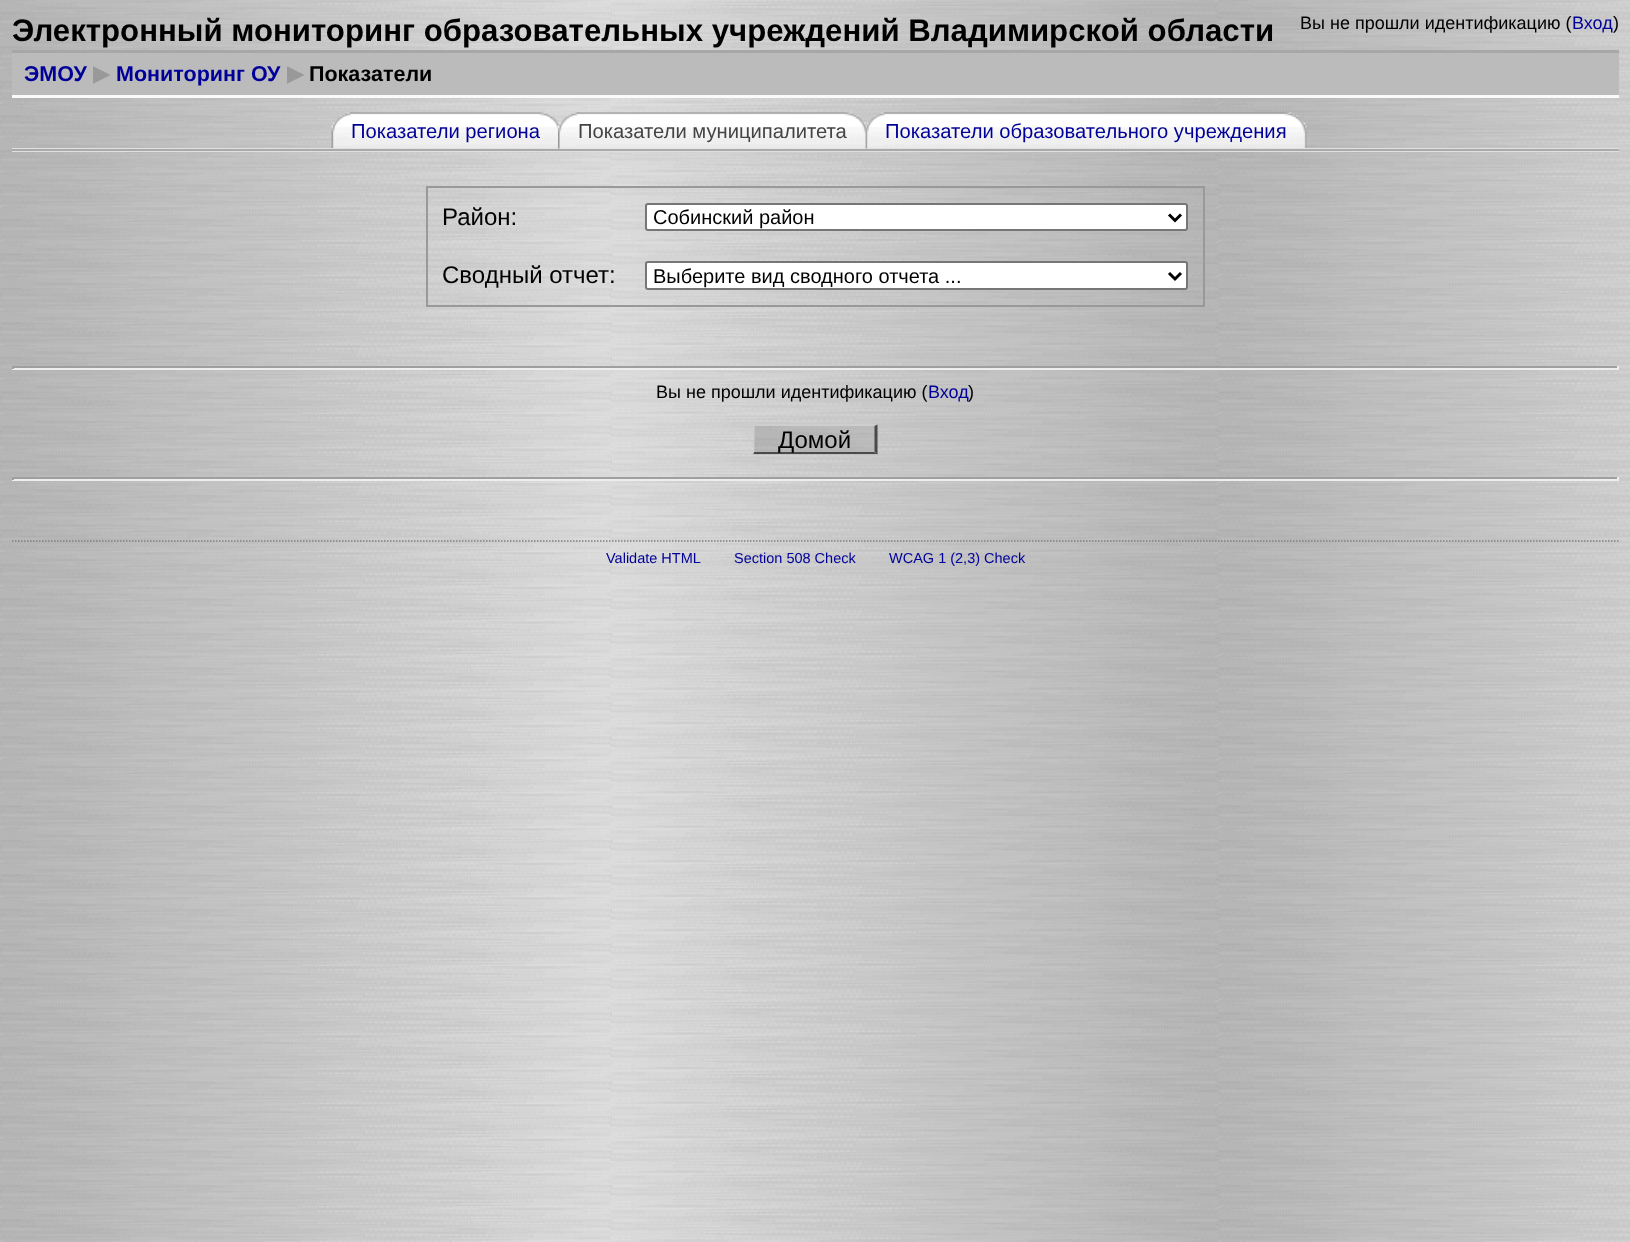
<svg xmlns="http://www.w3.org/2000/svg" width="1630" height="1242">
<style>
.a{font:bold 31.2px Liberation Sans;fill:#000}
.b{font:18px Liberation Sans;fill:#000}
.c{font:18px Liberation Sans;fill:#009}
.d{font:bold 21.5px Liberation Sans;fill:#009}
.e{font:bold 21.5px DejaVu Sans;fill:#999}
.f{font:bold 21.5px Liberation Sans;fill:#000}
.g{font:20.2px Liberation Sans;fill:#009}
.h{font:20.2px Liberation Sans;fill:#444}
.i{font:24px Liberation Sans;fill:#000}
.j{font:20px Liberation Sans;fill:#000}
.k{font:14.5px Liberation Sans;fill:#009}
</style>
<rect width="100%" height="100%" fill="#fff"/>
<image href="1.png" x="0" y="0" width="1630" height="1242"/>
<path fill="#bbb" d="M12 53h1607v42H12z"/>
<path fill="#a7a7a7" d="M12 50h1607v3H12z"/>
<path fill="#fafafa" d="M12 95h1607v3H12z"/>
<image href="2.png" x="331" y="112" width="22" height="36"/>
<image href="3.png" x="351" y="112" width="209" height="36"/>
<image href="4.png" x="865" y="112" width="22" height="36"/>
<image href="5.png" x="885" y="112" width="422" height="36"/>
<path fill="#e0e0e0" d="M12 148h1607v4H12z"/>
<image href="6.png" x="558" y="112" width="21" height="37"/>
<image href="7.png" x="577" y="112" width="290" height="37"/>
<path fill="#aaa" d="M12 149h1607v2H12z"/>
<path fill="#999" d="M426 186h779v2H426z"/>
<path fill="#999" d="M1203 186h2v120H1203z"/>
<path fill="#999" d="M426 305h779v2H426z"/>
<path fill="#999" d="M426 186h2v120H426z"/>
<rect fill="#fff" stroke="#767676" stroke-width="2" x="646" y="204" width="541" height="26" rx="2"/>
<path fill="none" stroke="#000" stroke-width="3" d="M1169 214.5l6 6l6-6"/>
<rect fill="#fff" stroke="#767676" stroke-width="2" x="646" y="262" width="541" height="27" rx="2"/>
<path fill="none" stroke="#000" stroke-width="3" d="M1169 273l6 6l6-6"/>
<path fill="#9f9f9f" d="M12 366h1607v2H12z"/>
<path fill="#eee" d="M1617 366h2v3H1617z"/>
<path fill="#eee" d="M12 368h1607v2H12z"/>
<path fill="#9f9f9f" d="M12 366h2v3H12z"/>
<image href="8.png" x="753" y="424" width="125" height="31"/>
<path fill="#cecece" d="M753 424h125l-4 2h-120z"/>
<path fill="#4a4a4a" d="M877.5 424.5v30l-3-3v-25.5z"/>
<path fill="#4a4a4a" d="M878 454h-125l1-2h120z"/>
<path fill="#cecece" d="M753 454.5v-30l1.5 1.5v25.5z"/>
<path fill="#9f9f9f" d="M12 477h1607v2H12z"/>
<path fill="#eee" d="M1617 477h2v3H1617z"/>
<path fill="#eee" d="M12 479h1607v2H12z"/>
<path fill="#9f9f9f" d="M12 477h2v3H12z"/>
<path fill="none" stroke="#808080" stroke-width="1.5" stroke-dasharray="1.5 1.5" d="M12 541h1606.5"/>
<text class="a" x="12" y="41">Электронный мониторинг образовательных учреждений Владимирской области</text>
<text class="b" x="1300" y="29">Вы не прошли идентификацию (</text>
<text class="c" x="1572" y="29">Вход</text>
<text class="b" x="1613" y="29">)</text>
<text class="d" x="24" y="81">ЭМОУ</text>
<text class="e" x="93" y="81">▶</text>
<text class="d" x="116" y="81">Мониторинг ОУ</text>
<text class="e" x="287" y="81">▶</text>
<text class="f" x="309" y="81">Показатели</text>
<text class="g" x="351" y="138">Показатели региона</text>
<text class="h" x="578" y="138">Показатели муниципалитета</text>
<text class="g" x="885" y="138">Показатели образовательного учреждения</text>
<text class="i" x="442" y="225">Район:</text>
<text class="j" x="653" y="224">Собинский район</text>
<text class="i" x="442" y="283">Сводный отчет:</text>
<text class="j" x="653" y="283">Выберите вид сводного отчета ...</text>
<text class="b" x="656" y="398">Вы не прошли идентификацию (</text>
<text class="c" x="928" y="398">Вход</text>
<text class="b" x="968" y="398">)</text>
<text class="i" x="778" y="448">Домой</text>
<text class="k" x="606" y="563">Validate HTML</text>
<text class="k" x="734" y="563">Section 508 Check</text>
<text class="k" x="889" y="563">WCAG 1 (2,3) Check</text>
</svg>
